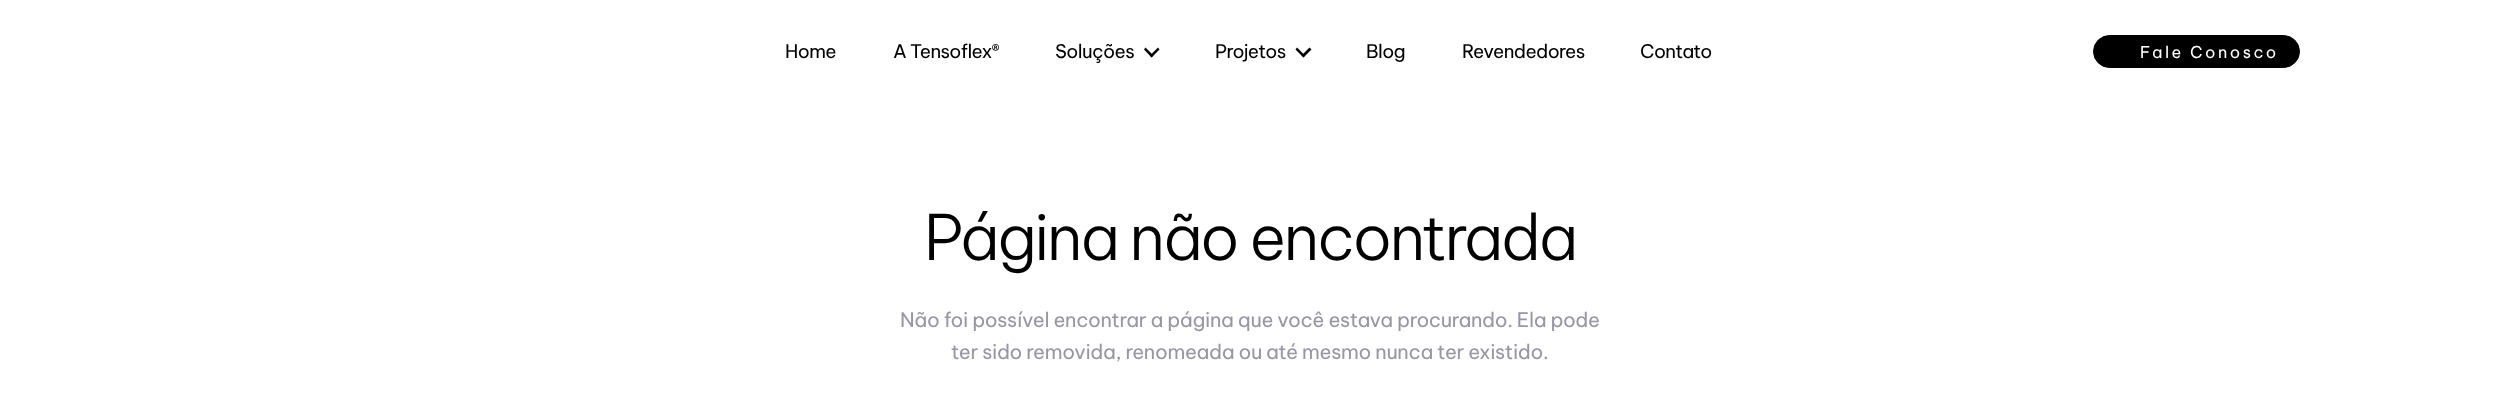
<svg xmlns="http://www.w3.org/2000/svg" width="2500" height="400">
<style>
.a{font:18.75px Be Vietnam Pro;letter-spacing:-0.6px;fill:#000}
.b{font:16.25px Be Vietnam Pro;letter-spacing:2.5px;fill:#fff}
.c{font:300 62.5px Be Vietnam Pro;letter-spacing:-2.5px;fill:#000}
.d{font:20px Be Vietnam Pro;letter-spacing:-0.35px;fill:#9796a3}
</style>
<rect width="100%" height="100%" fill="#fff"/>
<path fill="#000" d="M1144 49.5l1.5-2l8 8l-2 2z"/>
<path fill="#000" d="M1150 55.5l8-8l1.5 2l-8 8z"/>
<path fill="#000" d="M1295.5 49.5l1.5-2l8 8l-1.5 2z"/>
<path fill="#000" d="M1301.5 55.5l8-8l2 2l-8 8z"/>
<rect fill="#000" stroke="#000" x="2093.5" y="35.5" width="206" height="32" rx="16"/>
<text class="a" x="785" y="58">Home</text>
<text class="a" x="893" y="58">A Tensoflex®</text>
<text class="a" x="1055" y="58">Soluções</text>
<text class="a" x="1215" y="58">Projetos</text>
<text class="a" x="1366" y="58">Blog</text>
<text class="a" x="1462" y="58">Revendedores</text>
<text class="a" x="1640" y="58">Contato</text>
<text class="b" x="2140" y="58">Fale Conosco</text>
<text class="c" x="924" y="260">Página não encontrada</text>
<text class="d" x="900" y="327">Não foi possível encontrar a página que você estava procurando. Ela pode</text>
<text class="d" x="951" y="359">ter sido removida, renomeada ou até mesmo nunca ter existido.</text>
</svg>
